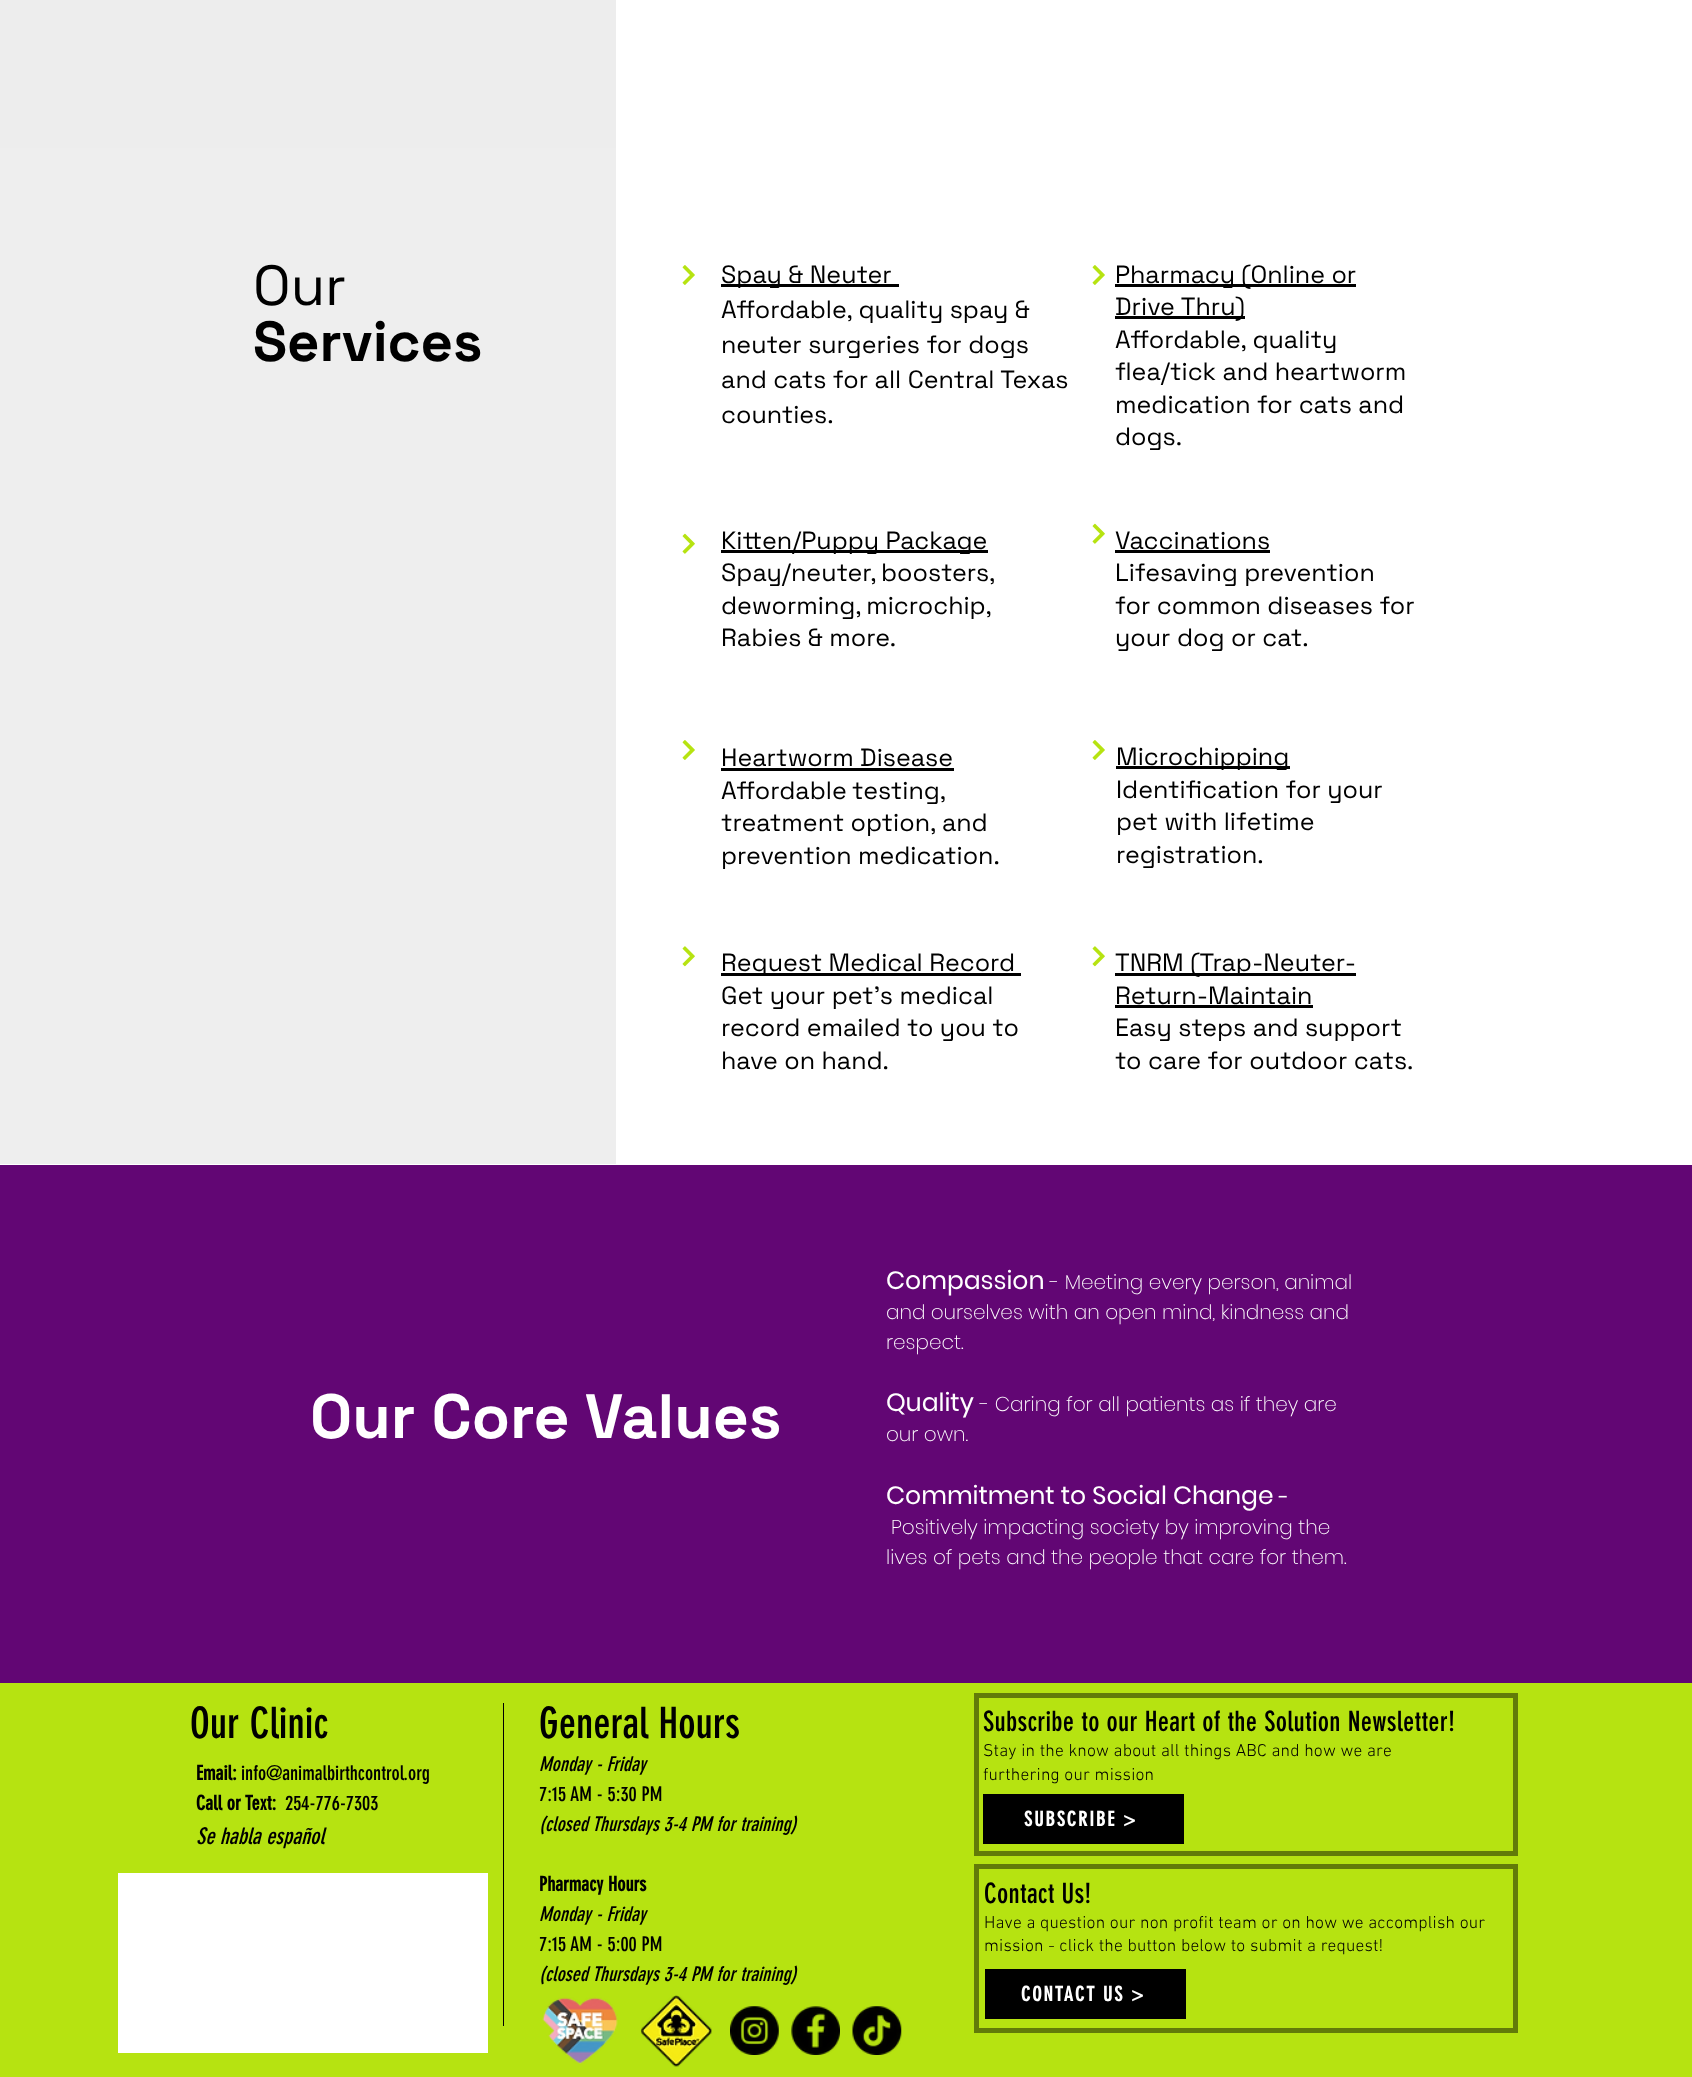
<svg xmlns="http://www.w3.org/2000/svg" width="1692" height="2077">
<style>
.a{font:56.25px Space Grotesk;fill:#000}
.b{font:bold 56.25px Space Grotesk;fill:#000}
.c{font:25px Space Grotesk;fill:#000}
.d{font:bold 62.5px Space Grotesk;fill:#fff}
.e{font:25px Poppins;fill:#fff}
.f{font:200 20px Poppins;fill:#fff}
.g{font:20px Poppins;fill:#fff}
.h{font:42.5px 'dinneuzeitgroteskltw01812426';fill:#000}
.i{font:27.5px 'dinneuzeitgroteskltw01812426';letter-spacing:0.28px;fill:#000}
.j{font:300 17.5px 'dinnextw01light';letter-spacing:0.18px;fill:#000}
.k{font:bold 20px 'dinneuzeitgroteskltw01812426';letter-spacing:2px;fill:#fff}
.l{font:bold 20px 'dinneuzeitgroteskltw01812426';fill:#000}
.m{font:20px 'dinneuzeitgroteskltw01812426';fill:#000}
.n{font:italic 20px 'dinneuzeitgroteskltw01812426';fill:#000}
.o{font:italic 22.5px 'dinneuzeitgroteskltw01812426';fill:#000}
</style>
<rect width="100%" height="100%" fill="#fff"/>
<path fill="#ededed" d="M0 0h616v148H0z"/>
<path fill="#eee" d="M0 148h616v1016H0z"/>
<image href="1.png" x="682" y="265" width="13" height="20"/>
<path fill="#000" d="M721 284h178v3H721z"/>
<image href="1.png" x="1092" y="265" width="13" height="20"/>
<path fill="#000" d="M1115 284h241v3H1115z"/>
<path fill="#000" d="M1115 316h130v3H1115z"/>
<image href="2.png" x="682" y="533" width="13" height="21"/>
<path fill="#000" d="M721 550h267v3H721z"/>
<image href="2.png" x="1092" y="523" width="13" height="21"/>
<path fill="#000" d="M1115 550h155v3H1115z"/>
<image href="1.png" x="682" y="740" width="13" height="20"/>
<path fill="#000" d="M721 768h233v3H721z"/>
<image href="1.png" x="1092" y="740" width="13" height="20"/>
<path fill="#000" d="M1116 766h174v3H1116z"/>
<image href="3.png" x="682" y="946" width="13" height="21"/>
<path fill="#000" d="M721 973h300v3H721z"/>
<image href="3.png" x="1092" y="946" width="13" height="21"/>
<path fill="#000" d="M1115 973h241v3H1115z"/>
<path fill="#000" d="M1115 1005h198v3H1115z"/>
<path fill="#620674" d="M0 1165h1692v518H0z"/>
<path fill="#b6e311" d="M0 1683h1692v394H0z"/>
<path fill="#000" d="M503 1703h1v323H503z"/>
<path fill="none" stroke="#627b09" stroke-width="5" d="M976.5 1695.5h539v158H976.5z"/>
<path fill="#000" d="M983 1794h201v50H983z"/>
<path fill="#fff" d="M118 1873h370v180H118z"/>
<path fill="none" stroke="#627b09" stroke-width="5" d="M976.5 1866.5h539v164H976.5z"/>
<path fill="#000" d="M985 1969h201v50H985z"/>
<image href="4.png" x="542" y="1997" width="76" height="67"/>
<image href="5.png" x="640" y="1995" width="72" height="72"/>
<image href="6.png" x="730" y="2006" width="49" height="49"/>
<image href="7.png" x="791" y="2006" width="49" height="49"/>
<image href="8.png" x="852" y="2006" width="50" height="49"/>
<text class="a" x="253" y="305">Our</text>
<text class="b" x="253" y="361">Services</text>
<text class="c" x="721" y="283">Spay &amp; Neuter</text>
<text class="c" x="721" y="318">Affordable, quality spay &amp;</text>
<text class="c" x="721" y="353">neuter surgeries for dogs</text>
<text class="c" x="721" y="388">and cats for all Central Texas</text>
<text class="c" x="721" y="423">counties.</text>
<text class="c" x="1115" y="283">Pharmacy (Online or</text>
<text class="c" x="1115" y="315">Drive Thru)</text>
<text class="c" x="1115" y="348">Affordable, quality</text>
<text class="c" x="1115" y="380">flea/tick and heartworm</text>
<text class="c" x="1115" y="413">medication for cats and</text>
<text class="c" x="1115" y="445">dogs.</text>
<text class="c" x="721" y="549">Kitten/Puppy Package</text>
<text class="c" x="721" y="581" word-spacing="-1">Spay/neuter, boosters,</text>
<text class="c" x="721" y="614" word-spacing="-1">deworming, microchip,</text>
<text class="c" x="721" y="646">Rabies &amp; more.</text>
<text class="c" x="1115" y="549">Vaccinations</text>
<text class="c" x="1115" y="581">Lifesaving prevention</text>
<text class="c" x="1115" y="614">for common diseases for</text>
<text class="c" x="1115" y="646">your dog or cat.</text>
<text class="c" x="721" y="766">Heartworm Disease</text>
<text class="c" x="721" y="799" word-spacing="-1">Affordable testing,</text>
<text class="c" x="721" y="831">treatment option, and</text>
<text class="c" x="721" y="864">prevention medication.</text>
<text class="c" x="1116" y="765">Microchipping</text>
<text class="c" x="1116" y="798">Identification for your</text>
<text class="c" x="1116" y="830">pet with lifetime</text>
<text class="c" x="1116" y="863">registration.</text>
<text class="c" x="721" y="971">Request Medical Record</text>
<text class="c" x="721" y="1004">Get your pet's medical</text>
<text class="c" x="721" y="1036">record emailed to you to</text>
<text class="c" x="721" y="1069">have on hand.</text>
<text class="c" x="1115" y="971">TNRM (Trap-Neuter-</text>
<text class="c" x="1115" y="1004">Return-Maintain</text>
<text class="c" x="1115" y="1036">Easy steps and support</text>
<text class="c" x="1115" y="1069">to care for outdoor cats.</text>
<text class="d" x="310" y="1438">Our Core Values</text>
<text class="e" x="886" y="1289">Compassion</text>
<text class="f" x="1050" y="1289">- Meeting every person, animal</text>
<text class="f" x="886" y="1319">and ourselves with an open mind, kindness and</text>
<text class="f" x="886" y="1349">respect.</text>
<text class="e" x="886" y="1411">Quality</text>
<text class="f" x="980" y="1411">- Caring for all patients as if they are</text>
<text class="f" x="886" y="1441">our own.</text>
<text class="e" x="886" y="1504">Commitment to Social Change</text>
<text class="g" x="1279" y="1504">-</text>
<text class="f" x="891" y="1534">Positively impacting society by improving the</text>
<text class="f" x="886" y="1564">lives of pets and the people that care for them.</text>
<text class="h" x="190" y="1738">Our Clinic</text>
<text class="h" x="539" y="1738">General Hours</text>
<text class="i" x="983" y="1731">Subscribe to our Heart of the Solution Newsletter!</text>
<text class="j" x="983" y="1756">Stay in the know about all things ABC and how we are</text>
<text class="j" x="983" y="1780">furthering our mission</text>
<text class="k" x="1024" y="1826">SUBSCRIBE &gt;</text>
<text class="l" x="196" y="1780">Email:</text>
<text class="m" x="241" y="1780">info@animalbirthcontrol.org</text>
<text class="l" x="196" y="1810">Call or Text:</text>
<text class="m" x="285" y="1810">254-776-7303</text>
<text class="n" x="539" y="1771">Monday - Friday</text>
<text class="m" x="539" y="1801">7:15 AM - 5:30 PM</text>
<text class="n" x="539" y="1831">(closed Thursdays 3-4 PM for training)</text>
<text class="l" x="539" y="1891">Pharmacy Hours</text>
<text class="n" x="539" y="1921">Monday - Friday</text>
<text class="m" x="539" y="1951">7:15 AM - 5:00 PM</text>
<text class="n" x="539" y="1981">(closed Thursdays 3-4 PM for training)</text>
<text class="o" x="196" y="1844">Se habla español</text>
<text class="i" x="984" y="1903">Contact Us!</text>
<text class="j" x="984" y="1928">Have a question our non profit team or on how we accomplish our</text>
<text class="j" x="984" y="1951">mission - click the button below to submit a request!</text>
<text class="k" x="1021" y="2001">CONTACT US &gt;</text>
</svg>
